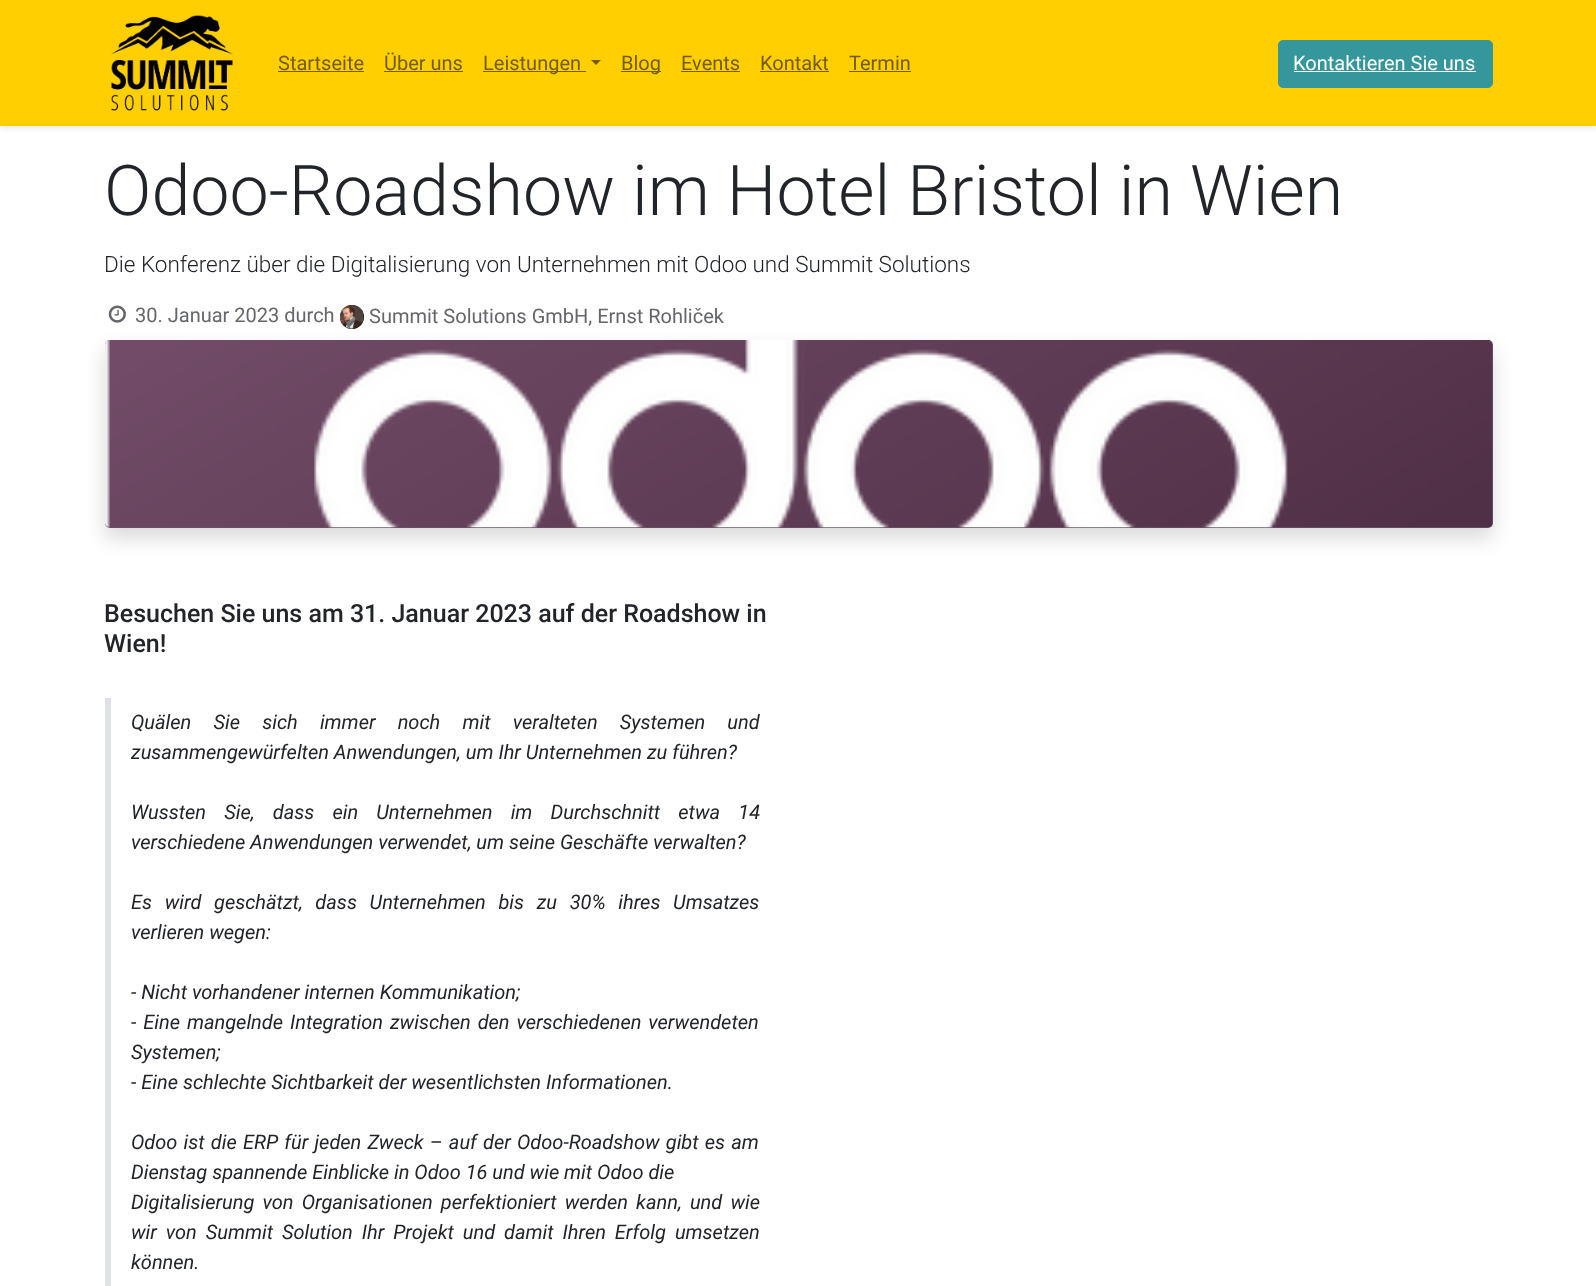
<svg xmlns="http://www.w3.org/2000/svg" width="1596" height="1286">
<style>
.a{font:20px Roboto;fill:#735d00}
.b{font:20px Roboto;fill:#fff}
.c{font:300 70px Roboto;fill:#212529}
.d{font:300 22.5px Roboto;fill:#212529}
.e{font:20px Roboto;fill:#646669}
.f{font:500 25px Roboto;fill:#212529}
.g{font:italic 20px Roboto;fill:#212529}
</style>
<rect width="100%" height="100%" fill="#fff"/>
<path fill="#00000012" filter="blur(2.5px)" d="M0 3h1596v126H0z"/>
<path fill="#ffcf01" d="M0 0h1596v126H0z"/>
<image href="1.png" x="111" y="15" width="122" height="96"/>
<path fill="#735d00" d="M278 71h86v1H278z"/>
<path fill="#735d00" d="M384 71h79v1H384z"/>
<path fill="#735d00" d="M483 71h103v1H483z"/>
<path fill="#735d00" d="M591 60h10l-5 5z"/>
<path fill="#735d00" d="M621 71h40v1H621z"/>
<path fill="#735d00" d="M681 71h59v1H681z"/>
<path fill="#735d00" d="M760 71h69v1H760z"/>
<path fill="#735d00" d="M849 71h62v1H849z"/>
<rect fill="#35979c" stroke="#35979c" x="1278.5" y="40.5" width="214" height="47" rx="4.5"/>
<path fill="#fff" d="M1294 71h182v1H1294z"/>
<image href="2.png" x="108" y="305" width="18" height="18"/>
<circle fill="#000" cx="352" cy="317" r="12"/>
<image href="3.png" x="340" y="305" width="24" height="24"/>
<rect fill="#00000026" filter="blur(10px)" x="105" y="350" width="1388" height="188" rx="5"/>
<rect fill="#685563" x="105" y="340" width="1388" height="188" rx="5"/>
<image href="4.png" x="105" y="340" width="1388" height="188"/>
<path fill="#dee2e6" d="M105 698h6v588H105z"/>
<text class="a" x="278" y="70">Startseite</text>
<text class="a" x="384" y="70">Über uns</text>
<text class="a" x="483" y="70">Leistungen</text>
<text class="a" x="621" y="70">Blog</text>
<text class="a" x="681" y="70">Events</text>
<text class="a" x="760" y="70">Kontakt</text>
<text class="a" x="849" y="70">Termin</text>
<text class="b" x="1293" y="70">Kontaktieren Sie uns</text>
<text class="c" x="104" y="215">Odoo-Roadshow im Hotel Bristol in Wien</text>
<text class="d" x="104" y="272">Die Konferenz über die Digitalisierung von Unternehmen mit Odoo und Summit Solutions</text>
<text class="e" x="135" y="322">30. Januar 2023 durch</text>
<text class="e" x="369" y="323">Summit Solutions GmbH, Ernst Rohliček</text>
<text class="f" x="104" y="622">Besuchen Sie uns am 31. Januar 2023 auf der Roadshow in</text>
<text class="f" x="104" y="652">Wien!</text>
<text class="g" x="131" y="729" word-spacing="17.25">Quälen Sie sich immer noch mit veralteten Systemen und</text>
<text class="g" x="131" y="759">zusammengewürfelten Anwendungen, um Ihr Unternehmen zu führen?</text>
<text class="g" x="131" y="819" word-spacing="13.25">Wussten Sie, dass ein Unternehmen im Durchschnitt etwa 14</text>
<text class="g" x="131" y="849">verschiedene Anwendungen verwendet, um seine Geschäfte verwalten?</text>
<text class="g" x="131" y="909" word-spacing="7.75">Es wird geschätzt, dass Unternehmen bis zu 30% ihres Umsatzes</text>
<text class="g" x="131" y="939">verlieren wegen:</text>
<text class="g" x="131" y="999">- Nicht vorhandener internen Kommunikation;</text>
<text class="g" x="131" y="1029" word-spacing="2">- Eine mangelnde Integration zwischen den verschiedenen verwendeten</text>
<text class="g" x="131" y="1059">Systemen;</text>
<text class="g" x="131" y="1089">- Eine schlechte Sichtbarkeit der wesentlichsten Informationen.</text>
<text class="g" x="131" y="1149" word-spacing="1.25">Odoo ist die ERP für jeden Zweck – auf der Odoo-Roadshow gibt es am</text>
<text class="g" x="131" y="1179">Dienstag spannende Einblicke in Odoo 16 und wie mit Odoo die</text>
<text class="g" x="131" y="1209" word-spacing="3.25">Digitalisierung von Organisationen perfektioniert werden kann, und wie</text>
<text class="g" x="131" y="1239" word-spacing="4">wir von Summit Solution Ihr Projekt und damit Ihren Erfolg umsetzen</text>
<text class="g" x="131" y="1269">können.</text>
</svg>
